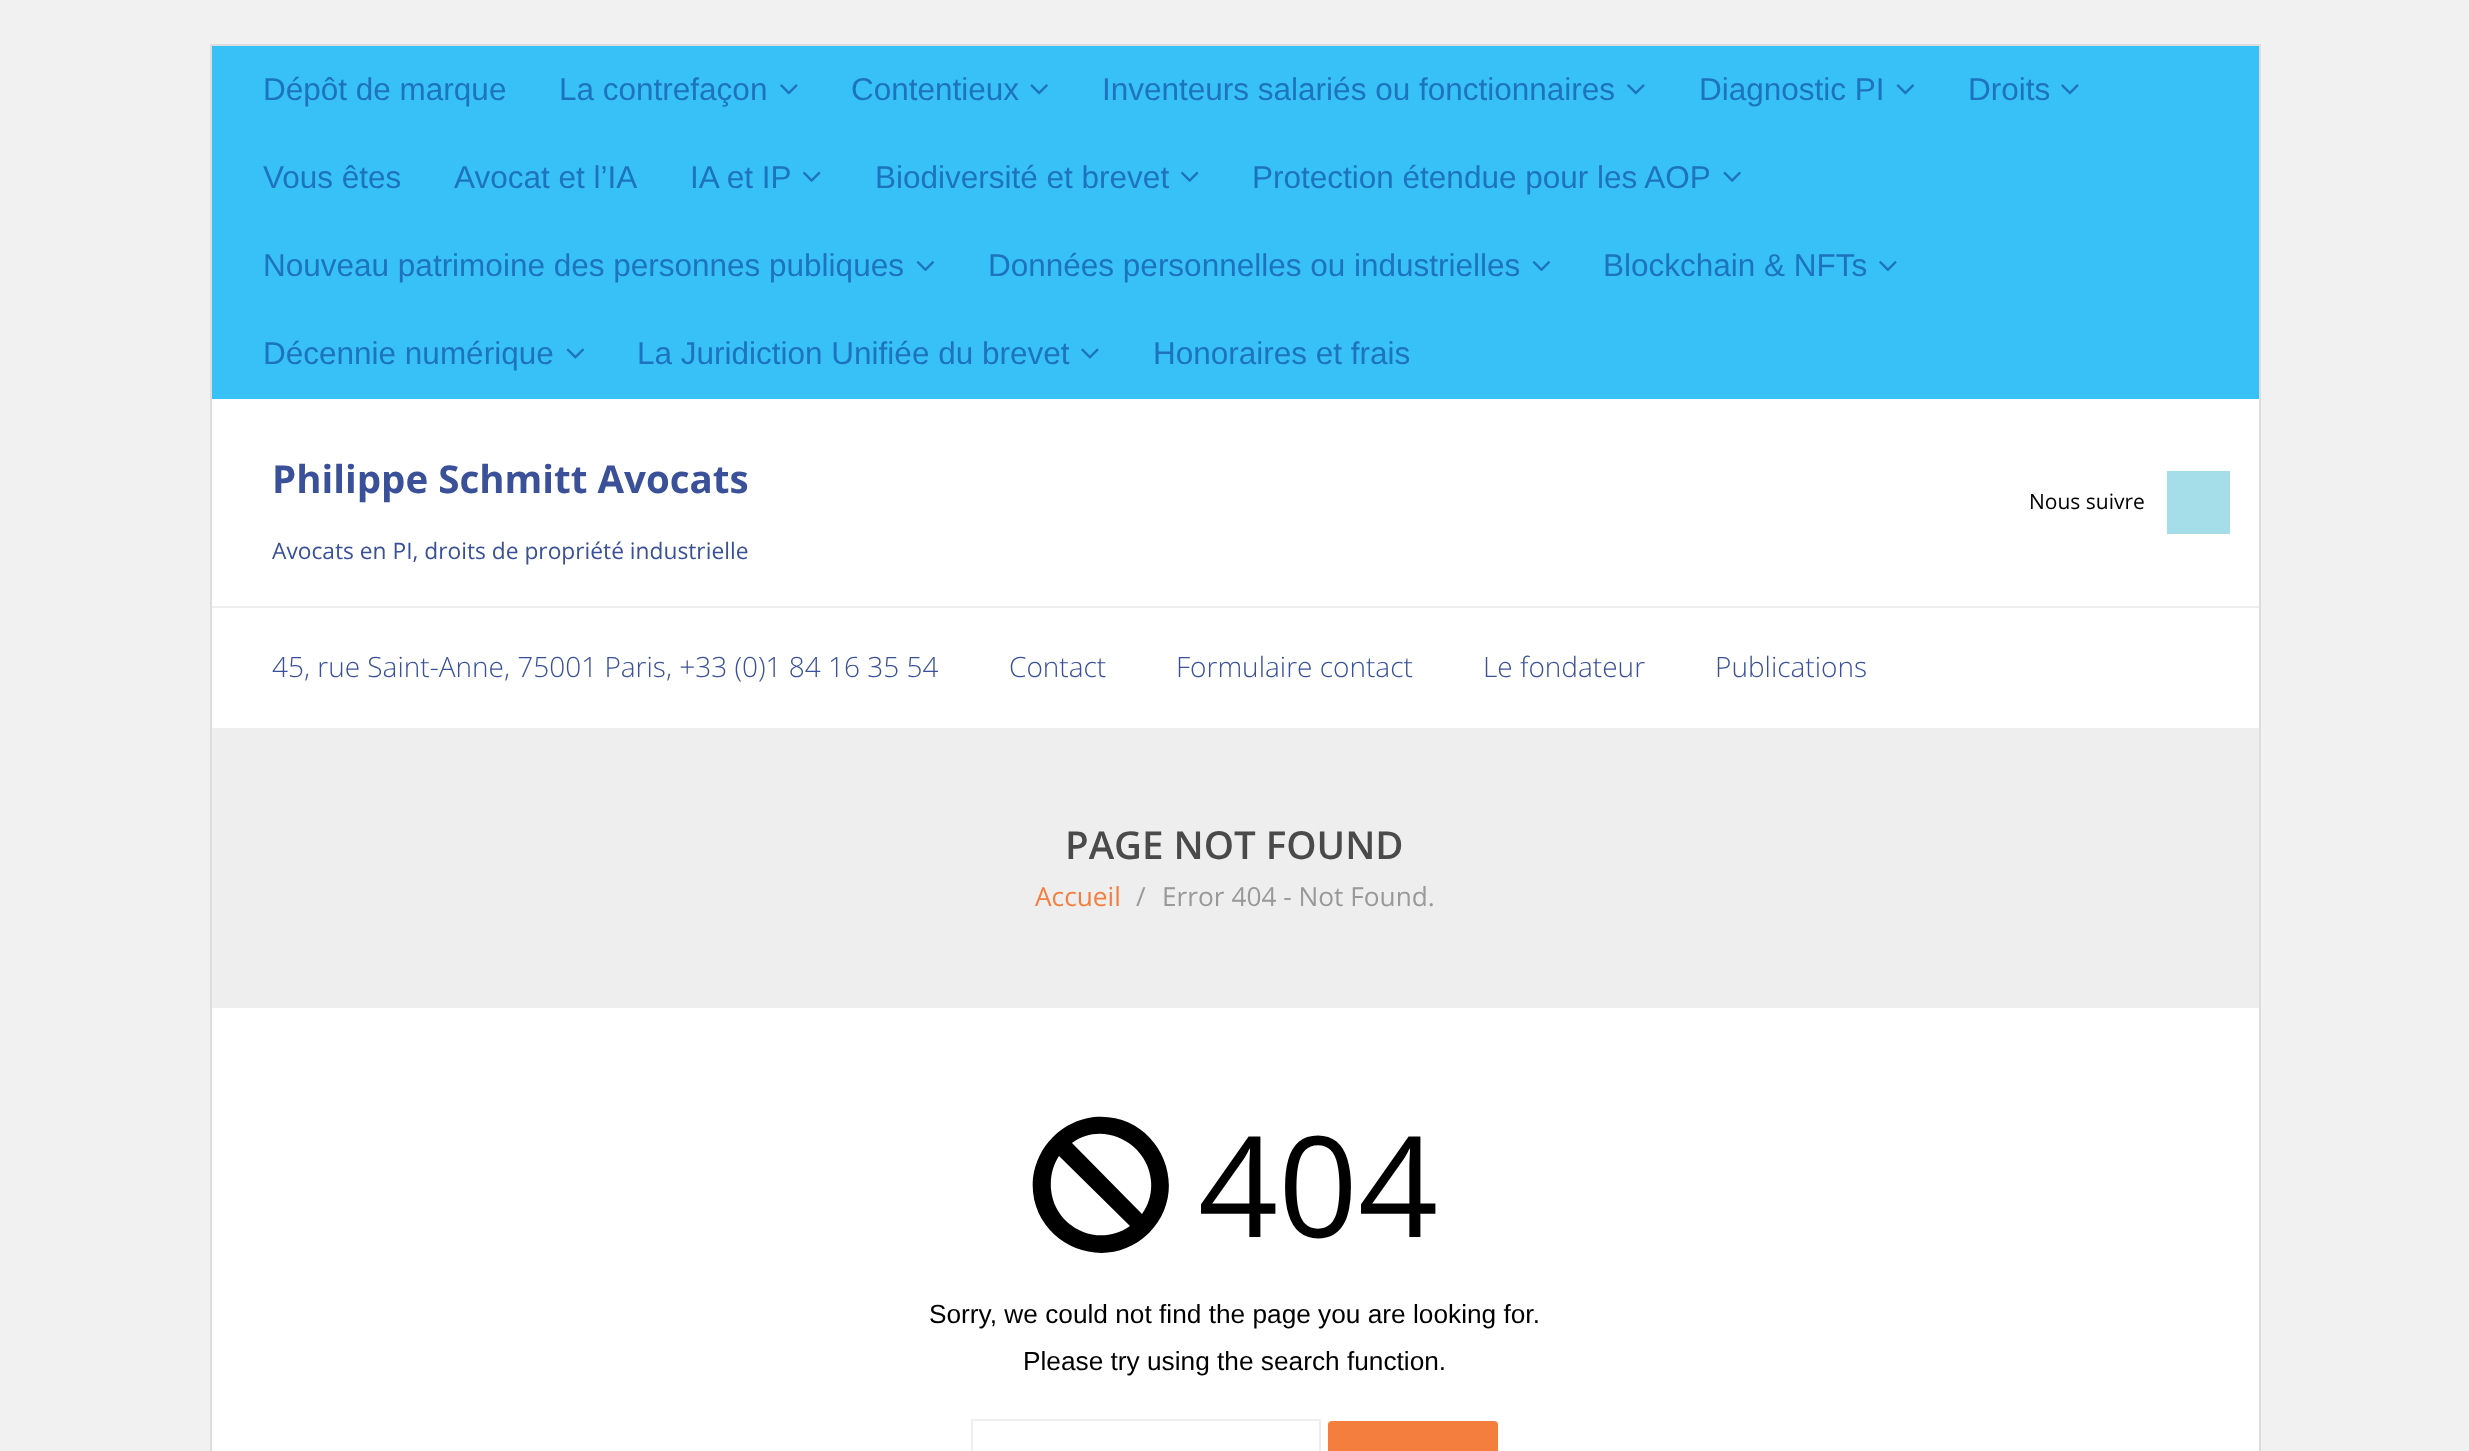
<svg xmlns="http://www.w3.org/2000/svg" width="2469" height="1451">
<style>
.a{font:31.5px Liberation Sans;fill:#1e73be}
.b{font:bold 38.5px Open Sans;fill:#3a5199}
.c{font:22.75px Open Sans;fill:#3a5199}
.d{font:21px Open Sans;fill:#000}
.e{font:300 28px Open Sans;fill:#3a5199}
.f{font:600 38.5px Open Sans;fill:#4b4a4b}
.g{font:26.25px Open Sans;fill:#f47e3e}
.h{font:26.25px Open Sans;fill:#999}
.i{font:140px Open Sans;fill:#000}
.j{font:26.25px Liberation Sans;fill:#000}
</style>
<rect width="100%" height="100%" fill="#f1f1f1"/>
<path fill="#fff" d="M212 399h2047v1052H212z"/>
<path fill="none" stroke="#ddd" stroke-width="2" d="M211 45h2049v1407H211z"/>
<path fill="#38c1f7" d="M212 46h2047v353H212z"/>
<image href="1.png" x="780" y="84" width="18" height="11"/>
<image href="2.png" x="1030" y="84" width="18" height="11"/>
<image href="1.png" x="1627" y="84" width="18" height="11"/>
<image href="3.png" x="1896" y="84" width="18" height="11"/>
<image href="1.png" x="2061" y="84" width="18" height="11"/>
<image href="4.png" x="803" y="171" width="18" height="11"/>
<image href="4.png" x="1181" y="171" width="18" height="11"/>
<image href="5.png" x="1723" y="171" width="18" height="11"/>
<image href="6.png" x="916" y="261" width="18" height="11"/>
<image href="6.png" x="1532" y="261" width="18" height="11"/>
<image href="7.png" x="1879" y="261" width="18" height="11"/>
<image href="8.png" x="566" y="348" width="18" height="11"/>
<image href="9.png" x="1081" y="348" width="18" height="11"/>
<path fill="#a5dee8" d="M2167 471h63v63H2167z"/>
<path fill="#eee" d="M212 606h2047v2H212z"/>
<path fill="#efeeee" d="M212 728h2047v280H212z"/>
<path fill="#000" d="M1053 1137c11-11 25-18 41-20c63-6 100 70 55 116c-46 45-122 8-116-55c2-16 9-30 20-41zm98 44c-3-38-48-61-79-38l70 71c7-10 10-21 9-33zm-100 8c3 38 47 60 79 37l-71-70c-6 9-9 20-8 33z"/>
<path fill="none" stroke="#efeeee" stroke-width="2" d="M972 1420h348v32H972z"/>
<rect fill="#f47e3e" x="1328" y="1421" width="170" height="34" rx="4"/>
<text class="a" x="263" y="100">Dépôt de marque</text>
<text class="a" x="559" y="100">La contrefaçon</text>
<text class="a" x="851" y="100">Contentieux</text>
<text class="a" x="1102" y="100">Inventeurs salariés ou fonctionnaires</text>
<text class="a" x="1699" y="100">Diagnostic PI</text>
<text class="a" x="1968" y="100">Droits</text>
<text class="a" x="263" y="188">Vous êtes</text>
<text class="a" x="454" y="188">Avocat et l’IA</text>
<text class="a" x="690" y="188">IA et IP</text>
<text class="a" x="875" y="188">Biodiversité et brevet</text>
<text class="a" x="1252" y="188">Protection étendue pour les AOP</text>
<text class="a" x="263" y="276">Nouveau patrimoine des personnes publiques</text>
<text class="a" x="988" y="276">Données personnelles ou industrielles</text>
<text class="a" x="1603" y="276">Blockchain &amp; NFTs</text>
<text class="a" x="263" y="364">Décennie numérique</text>
<text class="a" x="637" y="364">La Juridiction Unifiée du brevet</text>
<text class="a" x="1153" y="364">Honoraires et frais</text>
<text class="b" x="272" y="493">Philippe Schmitt Avocats</text>
<text class="c" x="272" y="559">Avocats en PI, droits de propriété industrielle</text>
<text class="d" x="2029" y="509">Nous suivre</text>
<text class="e" x="272" y="677">45, rue Saint-Anne, 75001 Paris, +33 (0)1 84 16 35 54</text>
<text class="e" x="1009" y="677">Contact</text>
<text class="e" x="1176" y="677">Formulaire contact</text>
<text class="e" x="1483" y="677">Le fondateur</text>
<text class="e" x="1715" y="677">Publications</text>
<text class="f" x="1065" y="859">PAGE NOT FOUND</text>
<text class="g" x="1035" y="906">Accueil</text>
<text class="h" x="1136" y="906">/</text>
<text class="h" x="1162" y="906">Error 404 - Not Found.</text>
<text class="i" x="1198" y="1237">404</text>
<text class="j" x="929" y="1323">Sorry, we could not find the page you are looking for.</text>
<text class="j" x="1023" y="1370">Please try using the search function.</text>
</svg>
